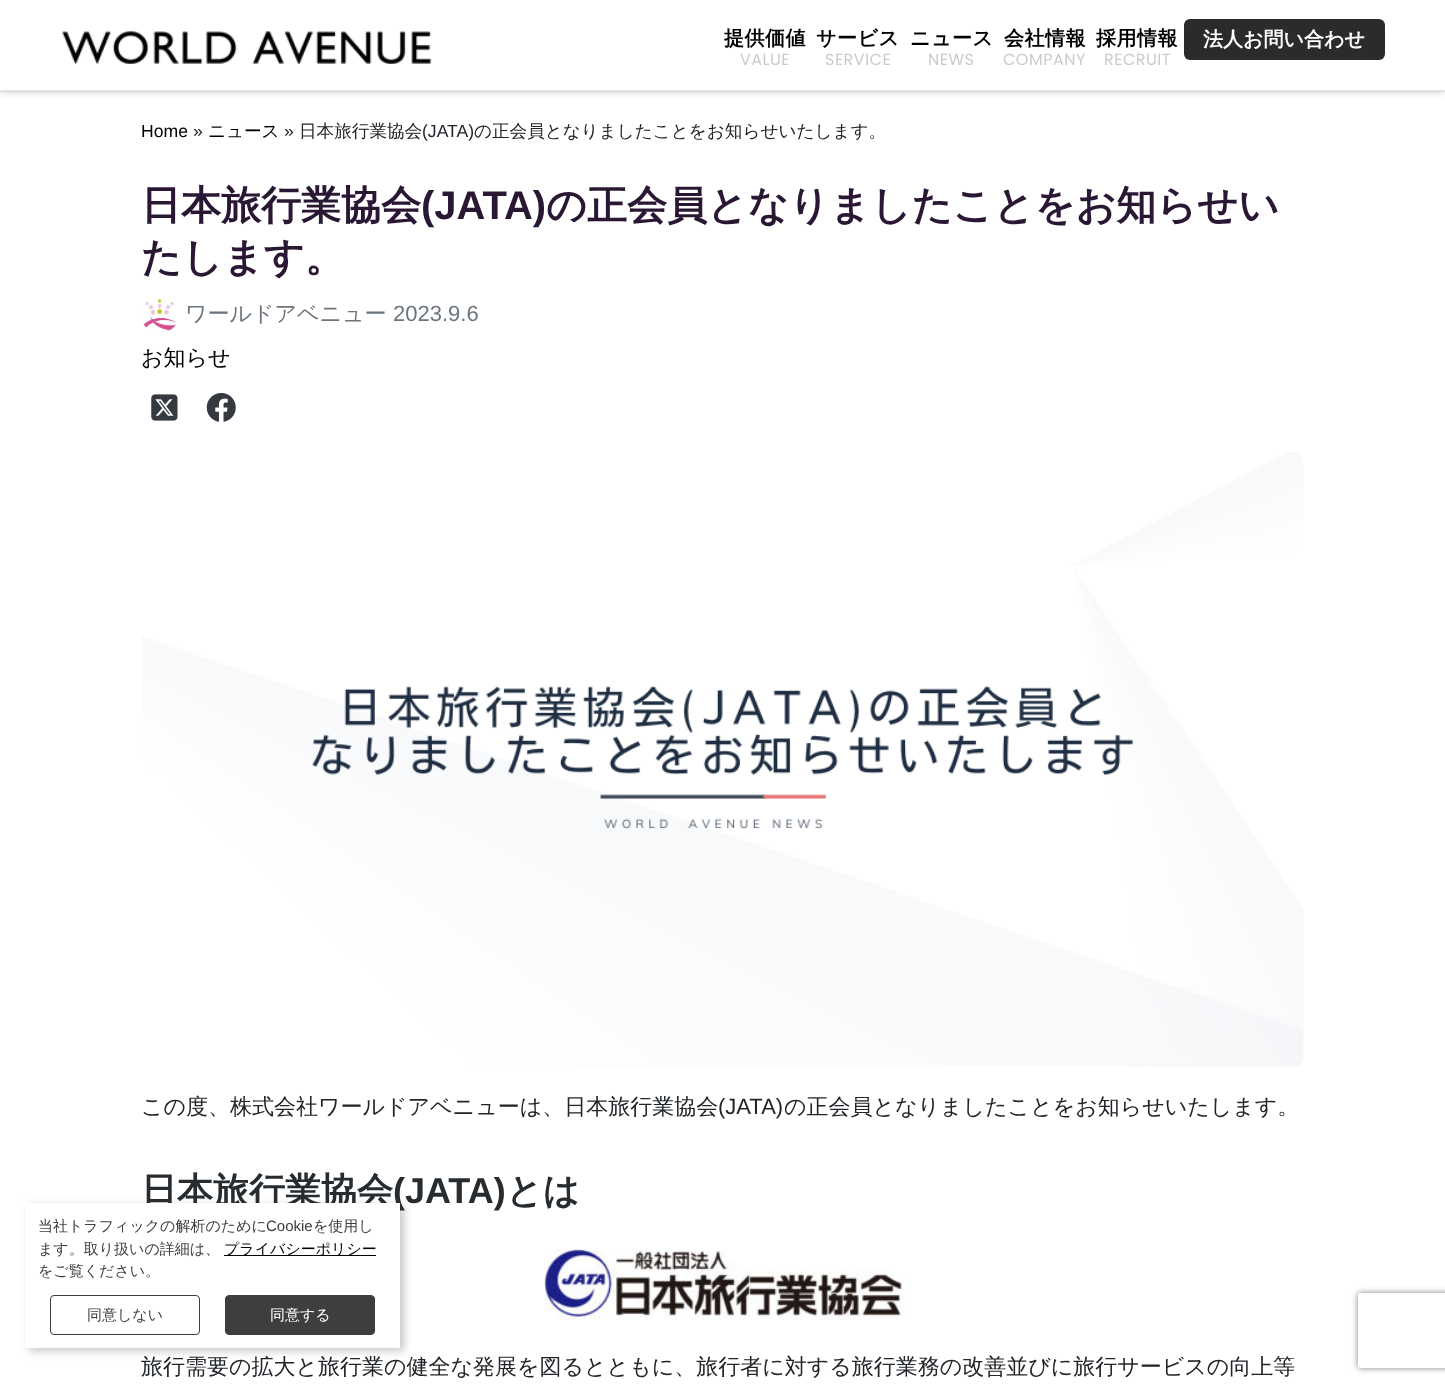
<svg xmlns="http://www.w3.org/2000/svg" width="1445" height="1384">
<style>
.a{font:bold 20px WenQuanYi Zen Hei;letter-spacing:0.5px;fill:#000}
.b{font:16px Poppins;letter-spacing:0.5px;fill:#cbcbcb}
.c{font:bold 20px WenQuanYi Zen Hei;fill:#fff}
.d{font:17.6px Liberation Sans;fill:#000}
.e{font:17.6px Liberation Sans;fill:#212529}
.f{font:500 17.6px WenQuanYi Zen Hei;fill:#000}
.g{font:500 17.6px WenQuanYi Zen Hei;fill:#212529}
.h{font:bold 40px WenQuanYi Zen Hei;fill:#291734}
.i{font:bold 40px Liberation Sans;fill:#291734}
.j{font:500 22px WenQuanYi Zen Hei;fill:#6c757d}
.k{font:22px Liberation Sans;fill:#6c757d}
.l{font:500 22px WenQuanYi Zen Hei;fill:#000}
.m{font:500 22px WenQuanYi Zen Hei;fill:#212529}
.n{font:22px Liberation Sans;fill:#212529}
.o{font:bold 36px WenQuanYi Zen Hei;fill:#272c30}
.p{font:bold 36px Liberation Sans;fill:#272c30}
.q{font:500 15px WenQuanYi Zen Hei;fill:#403d3d}
.r{font:15px Liberation Sans;fill:#403d3d}
.s{font:500 15px WenQuanYi Zen Hei;fill:#000}
.t{font:500 15px WenQuanYi Zen Hei;fill:#fff}
</style>
<defs>
<clipPath id="clip1"><path d="M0 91h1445v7H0z"/></clipPath>
<clipPath id="clip2"><path d="M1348 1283h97v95h-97zm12.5 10h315c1.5 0 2.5 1 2.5 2.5v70c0 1.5-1 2.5-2.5 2.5h-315c-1.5 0-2.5-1-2.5-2.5v-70c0-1.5 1-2.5 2.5-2.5z" clip-rule="evenodd"/></clipPath>
</defs>
<rect width="100%" height="100%" fill="#fff"/>
<g clip-path="url(#clip1)">
<path fill="#00000026" filter="blur(6px)" d="M0 0h1445v91H0z"/>
</g>
<path fill="#0000000d" d="M0 91h1445v2H0z"/>
<path fill="#dee2e6" d="M0 90h1445v1H0z"/>
<image href="1.png" x="62" y="31" width="370" height="33"/>
<rect fill="#2b2b2b" x="1184" y="19" width="201" height="41" rx="6"/>
<image href="2.png" x="142" y="298" width="34" height="34"/>
<image href="3.png" x="151" y="394" width="27" height="27"/>
<image href="4.png" x="206" y="393" width="30" height="29"/>
<image href="5.png" x="142" y="452" width="1162" height="615"/>
<image href="6.png" x="544" y="1249" width="361" height="71"/>
<path fill="#81818173" filter="blur(4px)" d="M29 1206h375v145H29z"/>
<g clip-path="url(#clip2)">
<rect fill="#808080" filter="blur(3px)" x="1358" y="1293" width="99" height="75" rx="2.5"/>
</g>
<text class="a" x="724" y="45">提供価値</text>
<text class="b" x="740" y="65">VALUE</text>
<text class="a" x="816" y="45">サービス</text>
<text class="b" x="825" y="65">SERVICE</text>
<text class="a" x="910" y="45">ニュース</text>
<text class="b" x="928" y="65">NEWS</text>
<text class="a" x="1004" y="45">会社情報</text>
<text class="b" x="1003" y="65">COMPANY</text>
<text class="a" x="1096" y="45">採用情報</text>
<text class="b" x="1104" y="65">RECRUIT</text>
<text class="c" x="1203" y="46">法人お問い合わせ</text>
<text class="d" x="141" y="137">Home</text>
<text class="e" x="193" y="137">»</text>
<text class="f" x="208" y="137">ニュース</text>
<text class="e" x="284" y="137">»</text>
<text class="g" x="299" y="137">日本旅行業協会</text>
<text class="e" x="422" y="137">(JATA)</text>
<text class="g" x="474" y="137">の正会員となりましたことをお知らせいたします。</text>
<text class="h" x="141" y="219">日本旅行業協会</text>
<text class="i" x="421" y="219">(JATA)</text>
<text class="h" x="546" y="219">の正会員となりましたことをお知らせい</text>
<text class="h" x="141" y="271">たします。</text>
<text class="j" x="185" y="321">ワールドアベニュー</text>
<text class="k" x="393" y="321">2023.9.6</text>
<text class="l" x="141" y="365">お知らせ</text>
<text class="m" x="141" y="1114">この度、株式会社ワールドアベニューは、日本旅行業協会</text>
<text class="n" x="718" y="1114">(JATA)</text>
<text class="m" x="784" y="1114">の正会員となりましたことをお知らせいたします。</text>
<text class="o" x="141" y="1203">日本旅行業協会</text>
<text class="p" x="393" y="1203">(JATA)</text>
<text class="o" x="506" y="1203">とは</text>
<text class="m" x="141" y="1374">旅行需要の拡大と旅行業の健全な発展を図るとともに、旅行者に対する旅行業務の改善並びに旅行サービスの向上等</text>
<path fill="#fff" d="M25 1203h375v145H25z"/>
<text class="q" x="38" y="1231">当社トラフィックの解析のために</text>
<text class="r" x="266" y="1231">Cookie</text>
<text class="q" x="313" y="1231">を使用し</text>
<text class="q" x="38" y="1254">ます。取り扱いの詳細は、</text>
<path fill="#000" d="M224 1255h152v1H224z"/>
<text class="s" x="224" y="1254">プライバシーポリシー</text>
<text class="q" x="38" y="1276">をご覧ください。</text>
<rect fill="none" stroke="#403d3d" x="50.5" y="1295.5" width="149" height="39" rx="3.5"/>
<text class="q" x="87" y="1320">同意しない</text>
<rect fill="#403d3d" stroke="#403d3d" x="225.5" y="1295.5" width="149" height="39" rx="3.5"/>
<text class="t" x="270" y="1320">同意する</text>
</svg>
